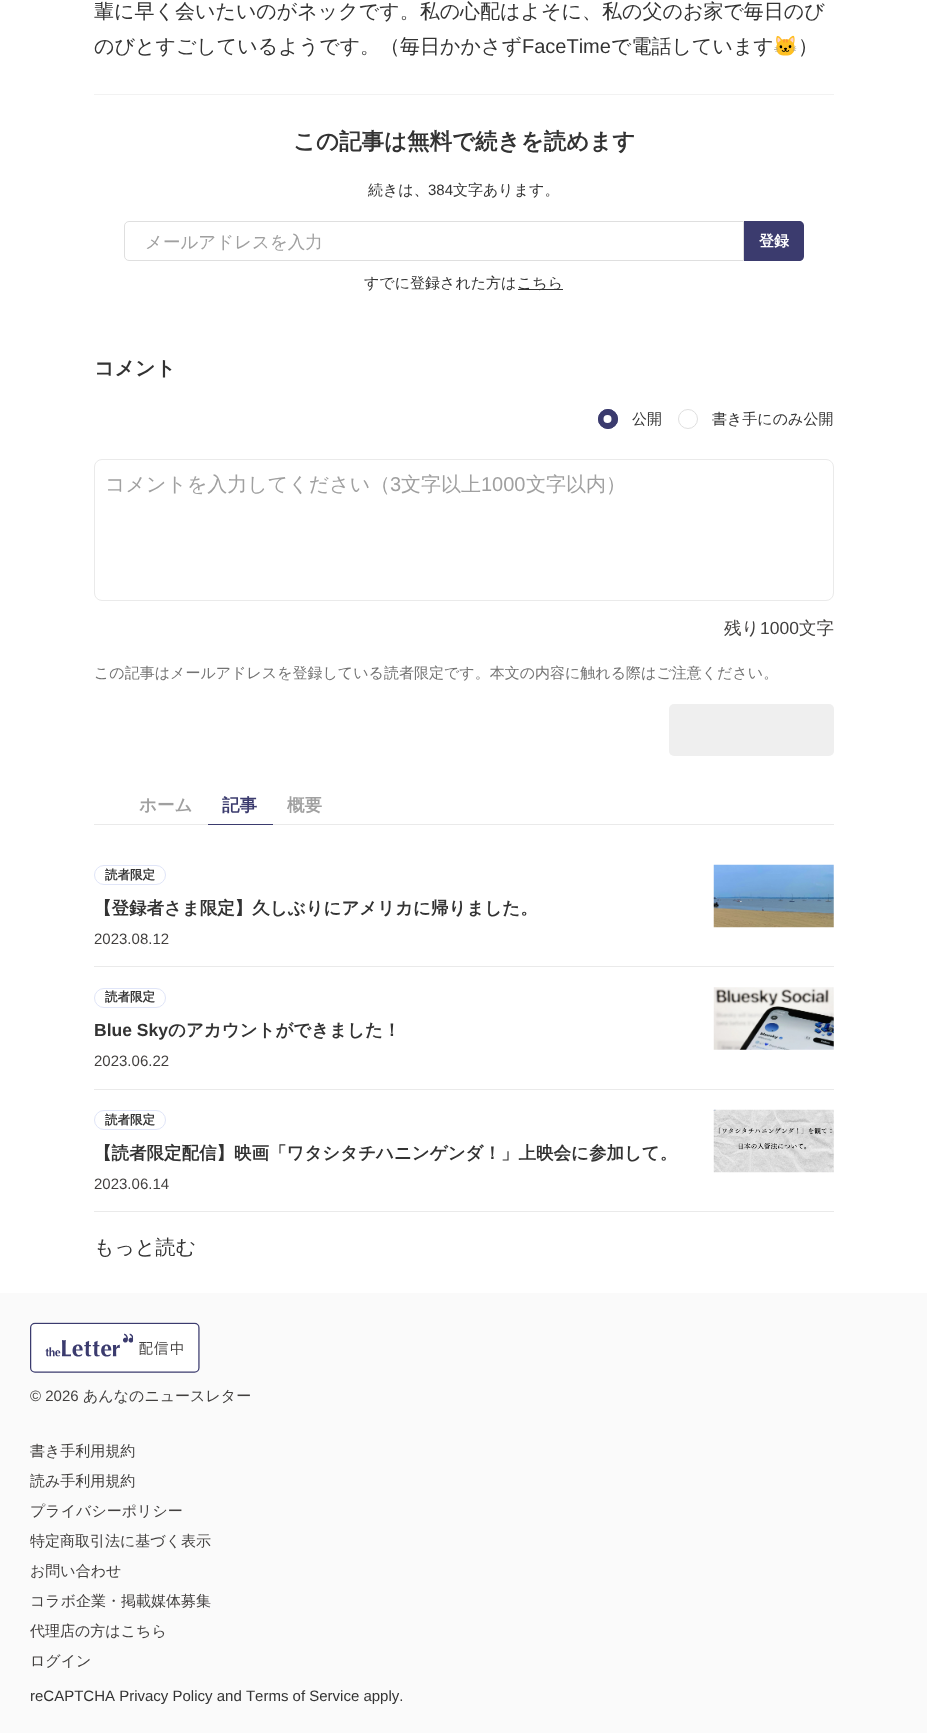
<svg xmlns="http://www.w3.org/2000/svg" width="927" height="1733">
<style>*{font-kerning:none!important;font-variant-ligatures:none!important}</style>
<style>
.a{font:500 20px WenQuanYi Zen Hei;fill:#333}
.b{font:20px Liberation Sans;fill:#333}
.c{font:20px Noto Color Emoji;fill:#333}
.d{font:bold 22.5px WenQuanYi Zen Hei;fill:#333}
.e{font:500 15px WenQuanYi Zen Hei;fill:#333}
.f{font:15px Liberation Sans;fill:#333}
.g{font:500 17.5px WenQuanYi Zen Hei;fill:#a0a0a0}
.h{font:bold 15px WenQuanYi Zen Hei;fill:#fff}
.i{font:bold 20px WenQuanYi Zen Hei;fill:#333}
.j{font:500 20px WenQuanYi Zen Hei;fill:#a0a0a0}
.k{font:20px Liberation Sans;fill:#a0a0a0}
.l{font:500 17.5px WenQuanYi Zen Hei;fill:#413f3e}
.m{font:17.5px Liberation Sans;fill:#413f3e}
.n{font:500 15px WenQuanYi Zen Hei;fill:#737373}
.o{font:bold 17.5px WenQuanYi Zen Hei;fill:#a0a0a0}
.p{font:bold 17.5px WenQuanYi Zen Hei;fill:#3b3b6e}
.q{font:bold 12.5px WenQuanYi Zen Hei;fill:#333}
.r{font:bold 17.5px WenQuanYi Zen Hei;fill:#333}
.s{font:15px Liberation Sans;fill:#413f3e}
.t{font:bold 17.5px Liberation Sans;fill:#333}
.u{font:500 15px WenQuanYi Zen Hei;fill:#413f3e}
</style>
<rect width="100%" height="100%" fill="#fff"/>
<path fill="#f2f2f2" d="M94 94h740v1H94z"/>
<path fill="none" stroke="#dfdfdf" d="M129 221.5h614.5v39h-614.5c-2.5 0-4.5-2-4.5-4.5v-30c0-2.5 2-4.5 4.5-4.5z"/>
<path fill="#3b3b6e" d="M744 221h55c3 0 5 2 5 5v30c0 3-2 5-5 5h-55z"/>
<path fill="#333" d="M518 289h45v1H518z"/>
<circle fill="#3b3b6e" cx="608" cy="419" r="10"/>
<circle fill="#fff" cx="607.5" cy="419" r="4"/>
<circle fill="none" stroke="#3b3b6e" cx="608" cy="419" r="9.5"/>
<circle fill="none" stroke="#dfdfdf" cx="688" cy="419" r="9.5"/>
<rect fill="none" stroke="#eaeaea" x="94.5" y="459.5" width="739" height="141" rx="7.5"/>
<rect fill="#efefef" x="669" y="704" width="165" height="52" rx="5"/>
<path fill="#eaeaea" d="M94 824h740v1H94z"/>
<path fill="#3b3b6e" d="M208 824h65v1H208z"/>
<path fill="#eaeaea" d="M94 966h740v1H94z"/>
<rect fill="none" stroke="#e0e5f8" x="94.5" y="865.5" width="71" height="19" rx="9.5"/>
<image href="1.png" x="713" y="864" width="121" height="64"/>
<path fill="#eaeaea" d="M94 1089h740v1H94z"/>
<rect fill="none" stroke="#e0e5f8" x="94.5" y="988.5" width="71" height="19" rx="9.5"/>
<image href="2.png" x="713" y="987" width="121" height="63"/>
<path fill="#eaeaea" d="M94 1211h740v1H94z"/>
<rect fill="none" stroke="#e0e5f8" x="94.5" y="1110.5" width="71" height="19" rx="9.5"/>
<image href="3.png" x="713" y="1109" width="121" height="64"/>
<path fill="#fafafa" d="M0 1293h927v440H0z"/>
<image href="4.png" x="30" y="1322" width="170" height="51"/>
<text class="a" x="94" y="18">輩に早く会いたいのがネックです。私の心配はよそに、私の父のお家で毎日のび</text>
<text class="a" x="94" y="53">のびとすごしているようです。（毎日かかさず</text>
<text class="b" x="522" y="53">FaceTime</text>
<text class="a" x="611" y="53">で電話しています</text>
<text class="c" x="773" y="53">🐱</text>
<text class="a" x="798" y="53">）</text>
<text class="d" x="293" y="149">この記事は無料で続きを読めます</text>
<text class="e" x="368" y="195">続きは、</text>
<text class="f" x="428" y="195">384</text>
<text class="e" x="453" y="195">文字あります。</text>
<text class="g" x="145" y="248">メールアドレスを入力</text>
<text class="h" x="759" y="246">登録</text>
<text class="e" x="364" y="288">すでに登録された方は</text>
<text class="e" x="517" y="288">こちら</text>
<text class="i" x="94" y="375">コメント</text>
<text class="e" x="632" y="424">公開</text>
<text class="e" x="712" y="424">書き手にのみ公開</text>
<text class="j" x="105" y="491">コメントを入力してください（</text>
<text class="k" x="390" y="491">3</text>
<text class="j" x="401" y="491">文字以上</text>
<text class="k" x="481" y="491">1000</text>
<text class="j" x="526" y="491">文字以内）</text>
<text class="l" x="724" y="634">残り</text>
<text class="m" x="760" y="634">1000</text>
<text class="l" x="799" y="634">文字</text>
<text class="n" x="94" y="678">この記事はメールアドレスを登録している読者限定です。本文の内容に触れる際はご注意ください。</text>
<text class="o" x="139" y="811">ホーム</text>
<text class="p" x="222" y="811">記事</text>
<text class="o" x="287" y="811">概要</text>
<text class="q" x="105" y="879">読者限定</text>
<text class="r" x="94" y="914">【登録者さま限定】久しぶりにアメリカに帰りました。</text>
<text class="s" x="94" y="944">2023.08.12</text>
<text class="q" x="105" y="1001">読者限定</text>
<text class="t" x="94" y="1036">Blue Sky</text>
<text class="r" x="168" y="1036">のアカウントができました！</text>
<text class="s" x="94" y="1066">2023.06.22</text>
<text class="q" x="105" y="1124">読者限定</text>
<text class="r" x="94" y="1159">【読者限定配信】映画「ワタシタチハニンゲンダ！」上映会に参加して。</text>
<text class="s" x="94" y="1189">2023.06.14</text>
<text class="a" x="94" y="1254">もっと読む</text>
<text class="s" x="30" y="1401">© 2026</text>
<text class="u" x="83" y="1401">あんなのニュースレター</text>
<text class="u" x="30" y="1456">書き手利用規約</text>
<text class="u" x="30" y="1486">読み手利用規約</text>
<text class="u" x="30" y="1516">プライバシーポリシー</text>
<text class="u" x="30" y="1546">特定商取引法に基づく表示</text>
<text class="u" x="30" y="1576">お問い合わせ</text>
<text class="u" x="30" y="1606">コラボ企業・掲載媒体募集</text>
<text class="u" x="30" y="1636">代理店の方はこちら</text>
<text class="u" x="30" y="1666">ログイン</text>
<text class="f" x="30" y="1701">reCAPTCHA Privacy Policy and Terms of Service apply.</text>
</svg>
